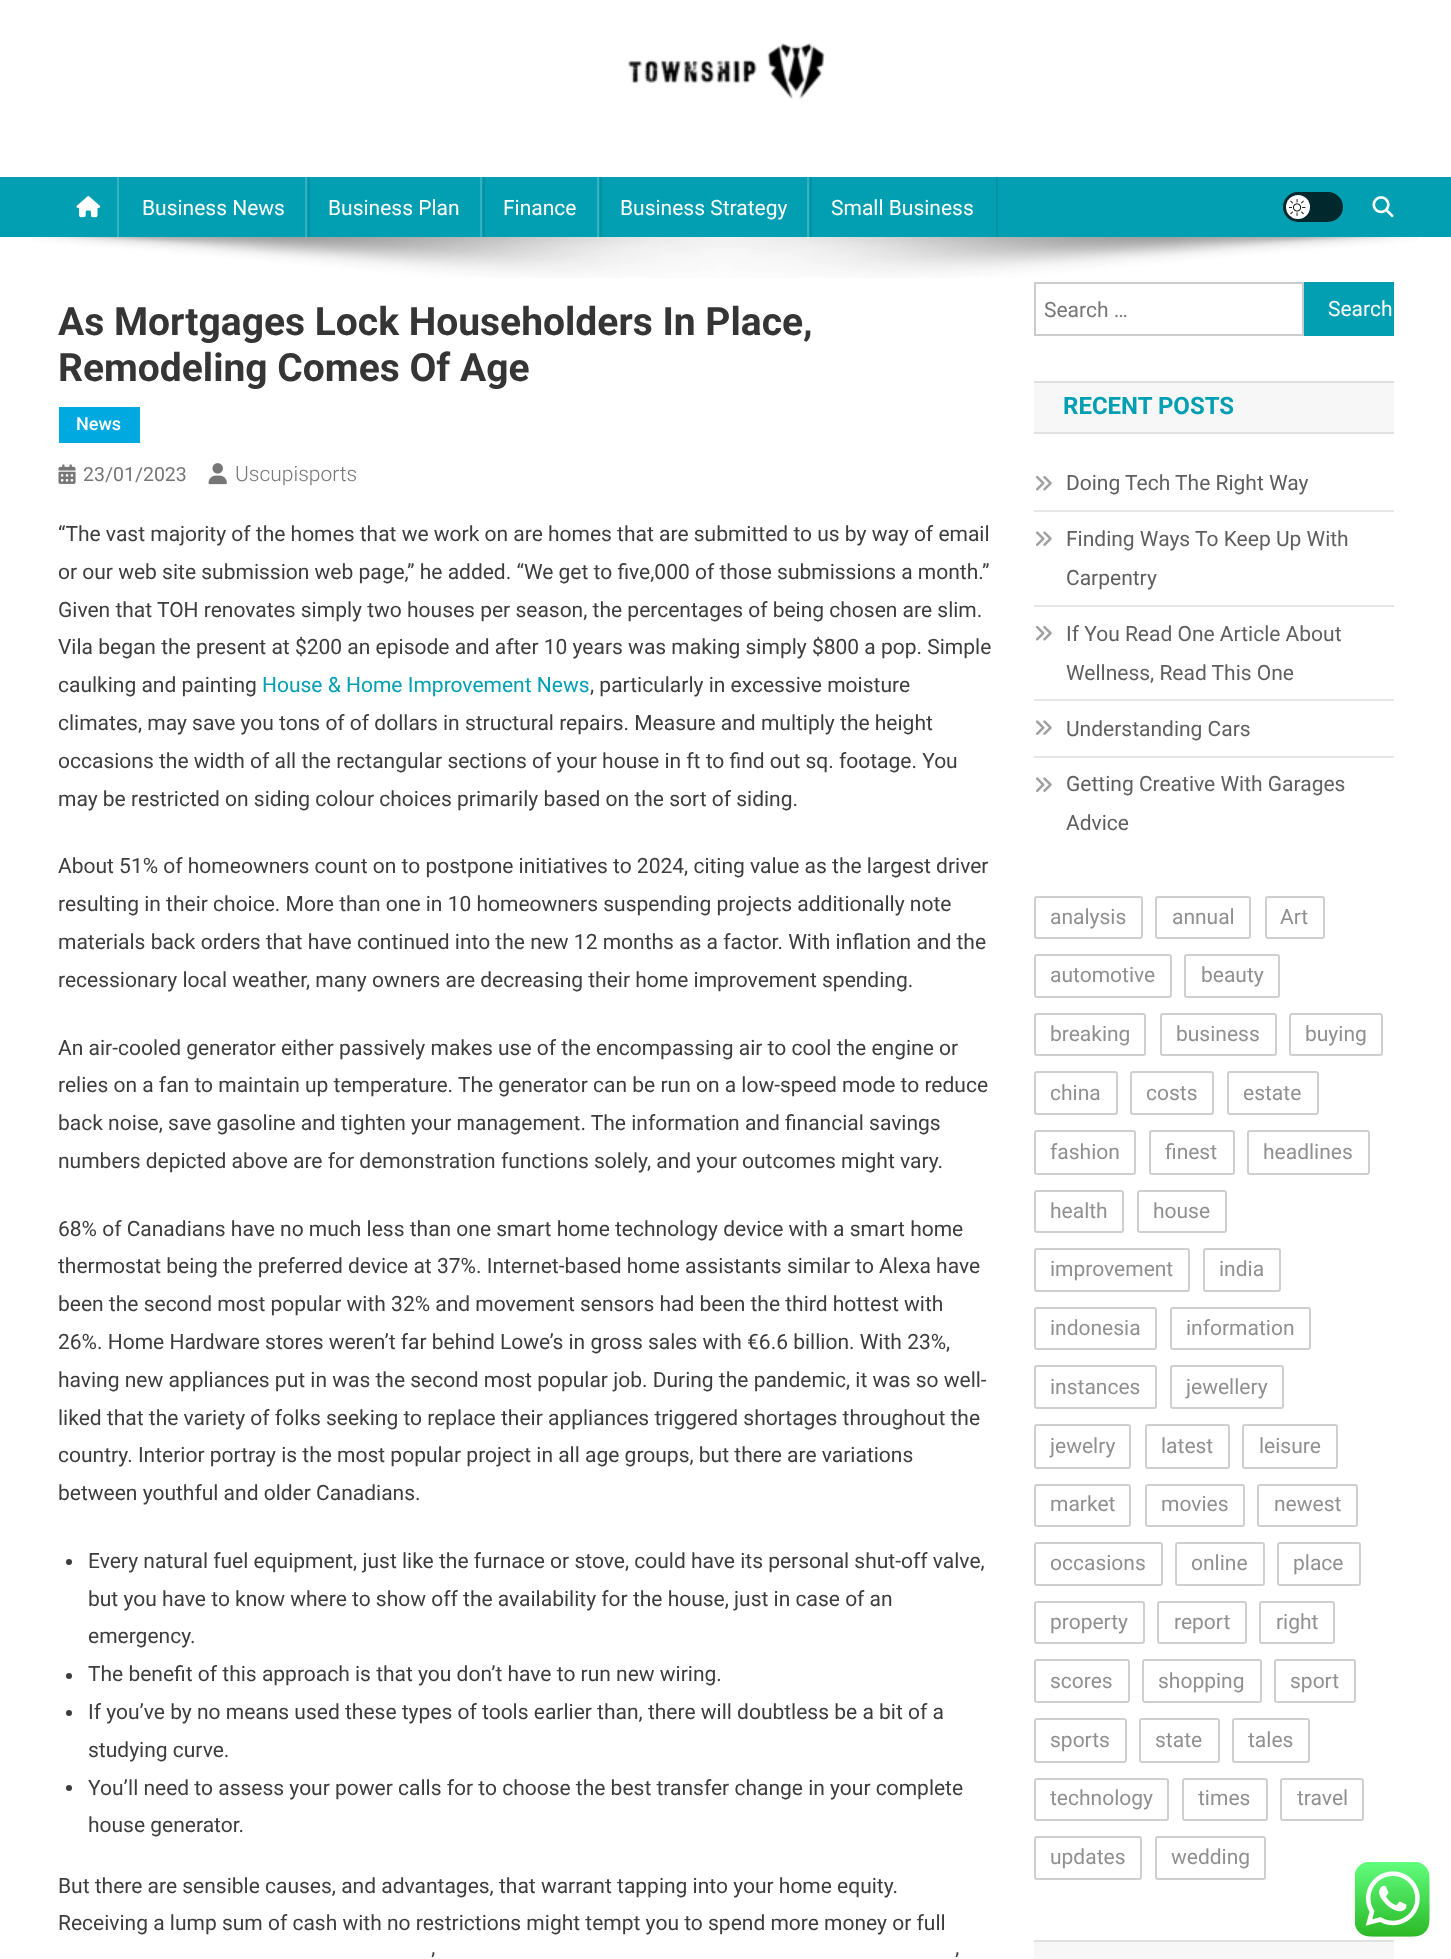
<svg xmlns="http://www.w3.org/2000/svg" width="1451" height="1959">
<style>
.a{font:21px Roboto;fill:#fff}
.b{font:bold 39px Roboto;fill:#353535}
.c{font:500 18px Roboto;fill:#fff}
.d{font:19.5px Roboto;fill:#767676}
.e{font:300 21px Roboto;fill:#767676}
.f{font:21px Roboto;fill:#3d3d3d}
.g{font:21px Roboto;fill:#029fb2}
.h{font:21px Roboto;fill:#767676}
.i{font:bold 24px Roboto;fill:#029fb2}
.j{font:21px Roboto;fill:#5f5f5f}
.k{font:21px Roboto;fill:#909090}
</style>
<rect width="100%" height="100%" fill="#fff"/>
<image href="1.png" x="628" y="43" width="197" height="57"/>
<path fill="#029fb2" d="M0 177h1451v60H0z"/>
<image href="2.png" x="76" y="196" width="25" height="22"/>
<path fill="#0292a4" d="M308 177h2v60H308z"/>
<path fill="#35b2c1" d="M117 177h2v60H117z"/>
<path fill="#0292a4" d="M483 177h2v60H483z"/>
<path fill="#35b2c1" d="M305 177h2v60H305z"/>
<path fill="#0292a4" d="M600 177h2v60H600z"/>
<path fill="#35b2c1" d="M480 177h2v60H480z"/>
<path fill="#0292a4" d="M810 177h2v60H810z"/>
<path fill="#35b2c1" d="M597 177h2v60H597z"/>
<path fill="#0292a4" d="M996 177h2v60H996z"/>
<path fill="#35b2c1" d="M807 177h2v60H807z"/>
<rect fill="#01282d" x="1283" y="192" width="60" height="30" rx="15"/>
<circle fill="#fff" cx="1298" cy="207" r="12"/>
<image href="3.png" x="1289" y="199" width="17" height="17"/>
<image href="4.png" x="1372" y="196" width="22" height="22"/>
<image href="5.png" x="32" y="237" width="1386" height="41"/>
<path fill="#00a9e0" d="M59 407h81v36H59z"/>
<image href="6.png" x="58" y="464" width="18" height="20"/>
<image href="7.png" x="208" y="463" width="19" height="22"/>
<circle fill="#3d3d3d" cx="69" cy="1562" r="3"/>
<circle fill="#3d3d3d" cx="69" cy="1676" r="3"/>
<circle fill="#3d3d3d" cx="69" cy="1713" r="3"/>
<circle fill="#3d3d3d" cx="69" cy="1788" r="3"/>
<path fill="none" stroke="#ccc" stroke-width="2" d="M1035 283h268v52H1035z"/>
<path fill="#029fb2" d="M1304 282h90v54H1304z"/>
<path fill="#f7f7f7" d="M1034 383h360v49H1034z"/>
<path fill="#e1e1e1" d="M1034 381h360v2H1034z"/>
<path fill="#e1e1e1" d="M1034 432h360v2H1034z"/>
<path fill="#e6e6e6" d="M1034 510h360v2H1034z"/>
<image href="8.png" x="1036" y="475" width="16" height="16"/>
<path fill="#e6e6e6" d="M1034 605h360v2H1034z"/>
<image href="9.png" x="1036" y="531" width="16" height="15"/>
<path fill="#e6e6e6" d="M1034 699h360v2H1034z"/>
<image href="8.png" x="1036" y="625" width="16" height="16"/>
<path fill="#e6e6e6" d="M1034 756h360v2H1034z"/>
<image href="9.png" x="1036" y="720" width="16" height="15"/>
<image href="9.png" x="1036" y="777" width="16" height="15"/>
<rect fill="none" stroke="#cfcfcf" stroke-width="2" x="1035" y="897" width="107" height="41" rx="2"/>
<rect fill="none" stroke="#cfcfcf" stroke-width="2" x="1156" y="897" width="94" height="41" rx="2"/>
<rect fill="none" stroke="#cfcfcf" stroke-width="2" x="1266" y="897" width="58" height="41" rx="2"/>
<rect fill="none" stroke="#cfcfcf" stroke-width="2" x="1035" y="955" width="136" height="42" rx="2"/>
<rect fill="none" stroke="#cfcfcf" stroke-width="2" x="1185" y="955" width="94" height="42" rx="2"/>
<rect fill="none" stroke="#cfcfcf" stroke-width="2" x="1035" y="1014" width="110" height="41" rx="2"/>
<rect fill="none" stroke="#cfcfcf" stroke-width="2" x="1161" y="1014" width="115" height="41" rx="2"/>
<rect fill="none" stroke="#cfcfcf" stroke-width="2" x="1290" y="1014" width="92" height="41" rx="2"/>
<rect fill="none" stroke="#cfcfcf" stroke-width="2" x="1035" y="1072" width="82" height="42" rx="2"/>
<rect fill="none" stroke="#cfcfcf" stroke-width="2" x="1131" y="1072" width="82" height="42" rx="2"/>
<rect fill="none" stroke="#cfcfcf" stroke-width="2" x="1228" y="1072" width="90" height="42" rx="2"/>
<rect fill="none" stroke="#cfcfcf" stroke-width="2" x="1035" y="1131" width="100" height="43" rx="2"/>
<rect fill="none" stroke="#cfcfcf" stroke-width="2" x="1150" y="1131" width="84" height="43" rx="2"/>
<rect fill="none" stroke="#cfcfcf" stroke-width="2" x="1248" y="1131" width="121" height="43" rx="2"/>
<rect fill="none" stroke="#cfcfcf" stroke-width="2" x="1035" y="1191" width="88" height="41" rx="2"/>
<rect fill="none" stroke="#cfcfcf" stroke-width="2" x="1138" y="1191" width="88" height="41" rx="2"/>
<rect fill="none" stroke="#cfcfcf" stroke-width="2" x="1035" y="1249" width="154" height="42" rx="2"/>
<rect fill="none" stroke="#cfcfcf" stroke-width="2" x="1204" y="1249" width="76" height="42" rx="2"/>
<rect fill="none" stroke="#cfcfcf" stroke-width="2" x="1035" y="1308" width="121" height="41" rx="2"/>
<rect fill="none" stroke="#cfcfcf" stroke-width="2" x="1171" y="1308" width="139" height="41" rx="2"/>
<rect fill="none" stroke="#cfcfcf" stroke-width="2" x="1035" y="1366" width="121" height="42" rx="2"/>
<rect fill="none" stroke="#cfcfcf" stroke-width="2" x="1171" y="1366" width="112" height="42" rx="2"/>
<rect fill="none" stroke="#cfcfcf" stroke-width="2" x="1035" y="1425" width="95" height="43" rx="2"/>
<rect fill="none" stroke="#cfcfcf" stroke-width="2" x="1146" y="1425" width="83" height="43" rx="2"/>
<rect fill="none" stroke="#cfcfcf" stroke-width="2" x="1243" y="1425" width="94" height="43" rx="2"/>
<rect fill="none" stroke="#cfcfcf" stroke-width="2" x="1035" y="1485" width="95" height="41" rx="2"/>
<rect fill="none" stroke="#cfcfcf" stroke-width="2" x="1146" y="1485" width="98" height="41" rx="2"/>
<rect fill="none" stroke="#cfcfcf" stroke-width="2" x="1258" y="1485" width="99" height="41" rx="2"/>
<rect fill="none" stroke="#cfcfcf" stroke-width="2" x="1035" y="1543" width="127" height="42" rx="2"/>
<rect fill="none" stroke="#cfcfcf" stroke-width="2" x="1176" y="1543" width="88" height="42" rx="2"/>
<rect fill="none" stroke="#cfcfcf" stroke-width="2" x="1278" y="1543" width="82" height="42" rx="2"/>
<rect fill="none" stroke="#cfcfcf" stroke-width="2" x="1035" y="1602" width="109" height="41" rx="2"/>
<rect fill="none" stroke="#cfcfcf" stroke-width="2" x="1158" y="1602" width="88" height="41" rx="2"/>
<rect fill="none" stroke="#cfcfcf" stroke-width="2" x="1260" y="1602" width="74" height="41" rx="2"/>
<rect fill="none" stroke="#cfcfcf" stroke-width="2" x="1035" y="1660" width="94" height="42" rx="2"/>
<rect fill="none" stroke="#cfcfcf" stroke-width="2" x="1143" y="1660" width="118" height="42" rx="2"/>
<rect fill="none" stroke="#cfcfcf" stroke-width="2" x="1275" y="1660" width="80" height="42" rx="2"/>
<rect fill="none" stroke="#cfcfcf" stroke-width="2" x="1035" y="1719" width="91" height="43" rx="2"/>
<rect fill="none" stroke="#cfcfcf" stroke-width="2" x="1140" y="1719" width="79" height="43" rx="2"/>
<rect fill="none" stroke="#cfcfcf" stroke-width="2" x="1233" y="1719" width="76" height="43" rx="2"/>
<rect fill="none" stroke="#cfcfcf" stroke-width="2" x="1035" y="1779" width="133" height="41" rx="2"/>
<rect fill="none" stroke="#cfcfcf" stroke-width="2" x="1183" y="1779" width="84" height="41" rx="2"/>
<rect fill="none" stroke="#cfcfcf" stroke-width="2" x="1281" y="1779" width="82" height="41" rx="2"/>
<rect fill="none" stroke="#cfcfcf" stroke-width="2" x="1035" y="1837" width="106" height="42" rx="2"/>
<rect fill="none" stroke="#cfcfcf" stroke-width="2" x="1156" y="1837" width="109" height="42" rx="2"/>
<path fill="#f7f7f7" d="M1034 1942h360v17H1034z"/>
<path fill="#e1e1e1" d="M1034 1940h360v2H1034z"/>
<image href="10.png" x="1355" y="1862" width="75" height="75"/>
<text class="a" x="142" y="215">Business News</text>
<text class="a" x="328" y="215">Business Plan</text>
<text class="a" x="503" y="215">Finance</text>
<text class="a" x="620" y="215">Business Strategy</text>
<text class="a" x="831" y="215">Small Business</text>
<text class="b" x="58" y="335">As Mortgages Lock Householders In Place,</text>
<text class="b" x="58" y="381">Remodeling Comes Of Age</text>
<text class="c" x="76" y="430">News</text>
<text class="d" x="83" y="481">23/01/2023</text>
<text class="e" x="235" y="481">Uscupisports</text>
<text class="f" x="58" y="541">“The vast majority of the homes that we work on are homes that are submitted to us by way of email</text>
<text class="f" x="58" y="579">or our web site submission web page,” he added. “We get to five,000 of those submissions a month.”</text>
<text class="f" x="58" y="617">Given that TOH renovates simply two houses per season, the percentages of being chosen are slim.</text>
<text class="f" x="58" y="654">Vila began the present at $200 an episode and after 10 years was making simply $800 a pop. Simple</text>
<text class="f" x="58" y="692">caulking and painting</text>
<text class="g" x="262" y="692">House &amp; Home Improvement News</text>
<text class="f" x="590" y="692">, particularly in excessive moisture</text>
<text class="f" x="58" y="730">climates, may save you tons of of dollars in structural repairs. Measure and multiply the height</text>
<text class="f" x="58" y="768">occasions the width of all the rectangular sections of your house in ft to find out sq. footage. You</text>
<text class="f" x="58" y="806">may be restricted on siding colour choices primarily based on the sort of siding.</text>
<text class="f" x="58" y="873">About 51% of homeowners count on to postpone initiatives to 2024, citing value as the largest driver</text>
<text class="f" x="58" y="911">resulting in their choice. More than one in 10 homeowners suspending projects additionally note</text>
<text class="f" x="58" y="949">materials back orders that have continued into the new 12 months as a factor. With inflation and the</text>
<text class="f" x="58" y="987">recessionary local weather, many owners are decreasing their home improvement spending.</text>
<text class="f" x="58" y="1055">An air-cooled generator either passively makes use of the encompassing air to cool the engine or</text>
<text class="f" x="58" y="1092">relies on a fan to maintain up temperature. The generator can be run on a low-speed mode to reduce</text>
<text class="f" x="58" y="1130">back noise, save gasoline and tighten your management. The information and financial savings</text>
<text class="f" x="58" y="1168">numbers depicted above are for demonstration functions solely, and your outcomes might vary.</text>
<text class="f" x="58" y="1236">68% of Canadians have no much less than one smart home technology device with a smart home</text>
<text class="f" x="58" y="1273">thermostat being the preferred device at 37%. Internet-based home assistants similar to Alexa have</text>
<text class="f" x="58" y="1311">been the second most popular with 32% and movement sensors had been the third hottest with</text>
<text class="f" x="58" y="1349">26%. Home Hardware stores weren’t far behind Lowe’s in gross sales with €6.6 billion. With 23%,</text>
<text class="f" x="58" y="1387">having new appliances put in was the second most popular job. During the pandemic, it was so well-</text>
<text class="f" x="58" y="1425">liked that the variety of folks seeking to replace their appliances triggered shortages throughout the</text>
<text class="f" x="58" y="1462">country. Interior portray is the most popular project in all age groups, but there are variations</text>
<text class="f" x="58" y="1500">between youthful and older Canadians.</text>
<text class="f" x="88" y="1568">Every natural fuel equipment, just like the furnace or stove, could have its personal shut-off valve,</text>
<text class="f" x="88" y="1606">but you have to know where to show off the availability for the house, just in case of an</text>
<text class="f" x="88" y="1643">emergency.</text>
<text class="f" x="88" y="1681">The benefit of this approach is that you don’t have to run new wiring.</text>
<text class="f" x="88" y="1719">If you’ve by no means used these types of tools earlier than, there will doubtless be a bit of a</text>
<text class="f" x="88" y="1757">studying curve.</text>
<text class="f" x="88" y="1795">You’ll need to assess your power calls for to choose the best transfer change in your complete</text>
<text class="f" x="88" y="1832">house generator.</text>
<text class="f" x="58" y="1893">But there are sensible causes, and advantages, that warrant tapping into your home equity.</text>
<text class="f" x="58" y="1930">Receiving a lump sum of cash with no restrictions might tempt you to spend more money or full</text>
<text class="f" x="431" y="1968">’</text>
<text class="f" x="955" y="1968">’</text>
<text class="h" x="1044" y="317">Search …</text>
<text class="a" x="1328" y="316">Search</text>
<text class="i" x="1063" y="414">RECENT POSTS</text>
<text class="j" x="1066" y="490">Doing Tech The Right Way</text>
<text class="j" x="1066" y="546">Finding Ways To Keep Up With</text>
<text class="j" x="1066" y="585">Carpentry</text>
<text class="j" x="1066" y="641">If You Read One Article About</text>
<text class="j" x="1066" y="680">Wellness, Read This One</text>
<text class="j" x="1066" y="736">Understanding Cars</text>
<text class="j" x="1066" y="791">Getting Creative With Garages</text>
<text class="j" x="1066" y="830">Advice</text>
<text class="k" x="1050" y="924">analysis</text>
<text class="k" x="1172" y="924">annual</text>
<text class="k" x="1280" y="924">Art</text>
<text class="k" x="1050" y="982">automotive</text>
<text class="k" x="1201" y="982">beauty</text>
<text class="k" x="1050" y="1041">breaking</text>
<text class="k" x="1176" y="1041">business</text>
<text class="k" x="1305" y="1041">buying</text>
<text class="k" x="1050" y="1100">china</text>
<text class="k" x="1146" y="1100">costs</text>
<text class="k" x="1243" y="1100">estate</text>
<text class="k" x="1050" y="1159">fashion</text>
<text class="k" x="1165" y="1159">finest</text>
<text class="k" x="1263" y="1159">headlines</text>
<text class="k" x="1050" y="1218">health</text>
<text class="k" x="1153" y="1218">house</text>
<text class="k" x="1050" y="1276">improvement</text>
<text class="k" x="1219" y="1276">india</text>
<text class="k" x="1050" y="1335">indonesia</text>
<text class="k" x="1186" y="1335">information</text>
<text class="k" x="1050" y="1394">instances</text>
<text class="k" x="1186" y="1394">jewellery</text>
<text class="k" x="1050" y="1453">jewelry</text>
<text class="k" x="1161" y="1453">latest</text>
<text class="k" x="1259" y="1453">leisure</text>
<text class="k" x="1050" y="1511">market</text>
<text class="k" x="1161" y="1511">movies</text>
<text class="k" x="1274" y="1511">newest</text>
<text class="k" x="1050" y="1570">occasions</text>
<text class="k" x="1191" y="1570">online</text>
<text class="k" x="1293" y="1570">place</text>
<text class="k" x="1050" y="1629">property</text>
<text class="k" x="1174" y="1629">report</text>
<text class="k" x="1276" y="1629">right</text>
<text class="k" x="1050" y="1688">scores</text>
<text class="k" x="1158" y="1688">shopping</text>
<text class="k" x="1290" y="1688">sport</text>
<text class="k" x="1050" y="1747">sports</text>
<text class="k" x="1155" y="1747">state</text>
<text class="k" x="1248" y="1747">tales</text>
<text class="k" x="1050" y="1805">technology</text>
<text class="k" x="1198" y="1805">times</text>
<text class="k" x="1297" y="1805">travel</text>
<text class="k" x="1050" y="1864">updates</text>
<text class="k" x="1171" y="1864">wedding</text>
</svg>
